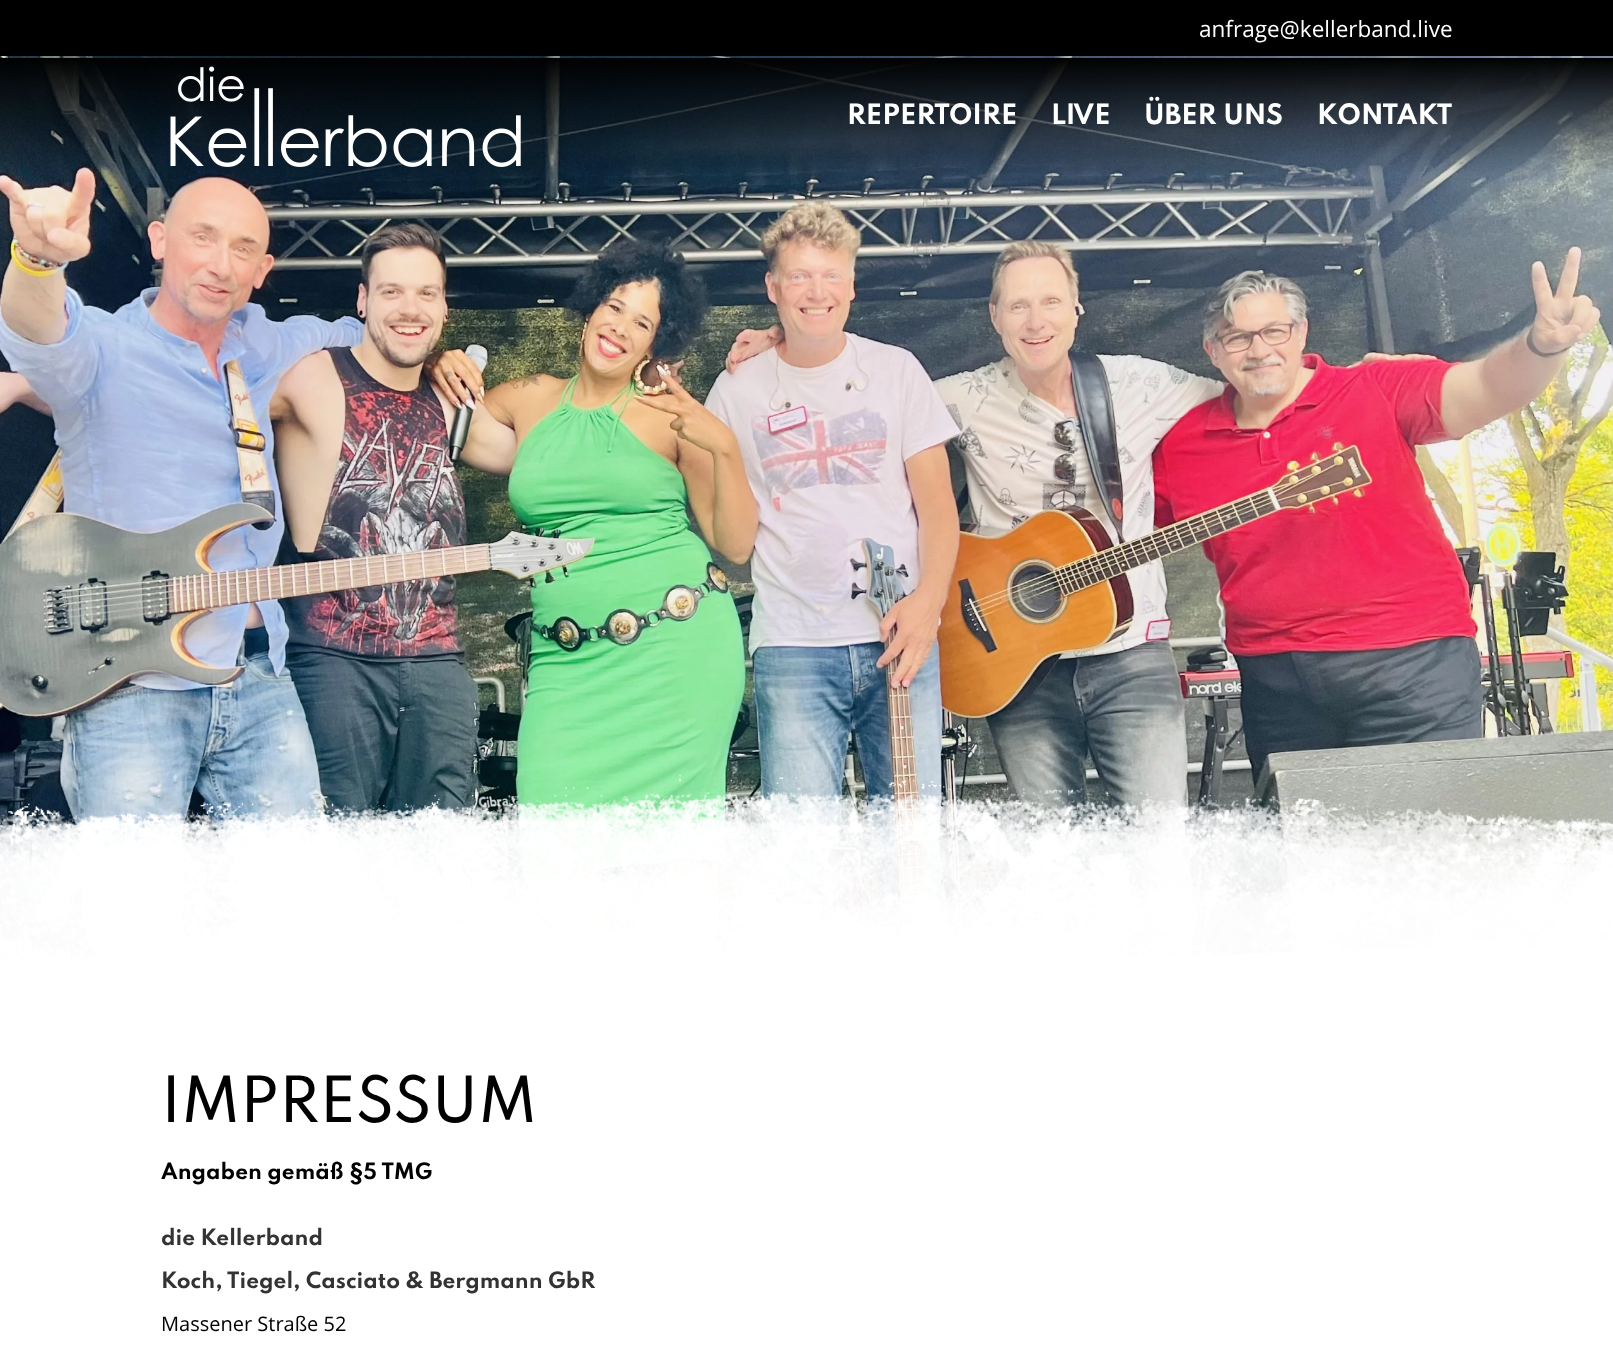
<svg xmlns="http://www.w3.org/2000/svg" width="1613" height="1345">
<style>
.a{font:22.5px Open Sans;fill:#fff}
.b{font:bold 25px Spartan;fill:#fff}
.c{font:500 56.5px Spartan;fill:#000}
.d{font:bold 20px Spartan;fill:#000}
.e{font:bold 20px Spartan;fill:#333}
.f{font:20px Open Sans;fill:#000}
</style>
<rect width="100%" height="100%" fill="#fff"/>
<path fill="#000" d="M0 0h1613v56H0z"/>
<image href="2.png" x="0" y="56" width="1613" height="904"/>
<image href="1.png" x="170" y="66" width="351" height="101"/>
<image href="3.png" x="0" y="775" width="1613" height="185"/>
<text class="a" x="1199" y="37">anfrage@kellerband.live</text>
<text class="b" x="847" y="124">REPERTOIRE</text>
<text class="b" x="1051" y="124">LIVE</text>
<text class="b" x="1144" y="124">ÜBER UNS</text>
<text class="b" x="1317" y="124">KONTAKT</text>
<text class="c" x="161" y="1122">IMPRESSUM</text>
<text class="d" x="161" y="1179">Angaben gemäß §5 TMG</text>
<text class="e" x="161" y="1245">die Kellerband</text>
<text class="e" x="161" y="1288">Koch, Tiegel, Casciato &amp; Bergmann GbR</text>
<text class="f" x="161" y="1331">Massener Straße 52</text>
</svg>
